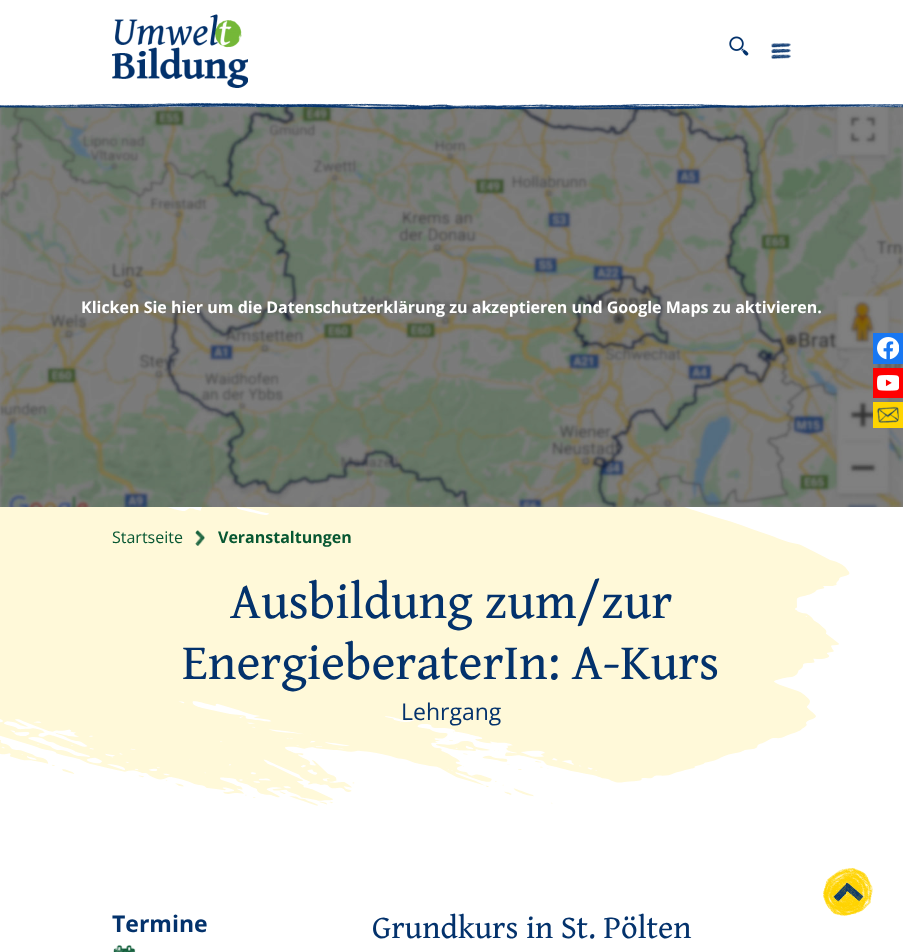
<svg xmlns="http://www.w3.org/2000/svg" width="903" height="952">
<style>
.a{font:bold 16px Open Sans;fill:#fff}
.b{font:16px Open Sans;fill:#075732}
.c{font:bold 16px Open Sans;fill:#075732}
.d{font:51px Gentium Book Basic;fill:#03326c}
.e{font:23px Open Sans;fill:#03326c}
.f{font:bold 23px Open Sans;fill:#03326c}
.g{font:32.5px Gentium Book Basic;fill:#03326c}
</style>
<rect width="100%" height="100%" fill="#fff"/>
<path fill="#dee2e6" d="M0 106h903v1H0z"/>
<image href="1.png" x="112" y="14" width="136" height="74"/>
<image href="2.png" x="729" y="36" width="20" height="20"/>
<image href="3.png" x="771" y="43" width="20" height="16"/>
<image href="5.png" x="0" y="107" width="903" height="400"/>
<image href="4.png" x="0" y="102" width="903" height="8"/>
<image href="7.png" x="0" y="507" width="850" height="299"/>
<image href="6.png" x="195" y="530" width="10" height="16"/>
<image href="8.png" x="113" y="945" width="23" height="7"/>
<image href="9.png" x="823" y="868" width="50" height="48"/>
<path fill="#1877f2" d="M873 333h30v31H873z"/>
<image href="10.png" x="877" y="337" width="22" height="23"/>
<path fill="#f00" d="M873 368h30v30H873z"/>
<image href="11.png" x="877" y="375" width="22" height="16"/>
<path fill="#ffd400" d="M873 402h30v26H873z"/>
<image href="12.png" x="876" y="406" width="23" height="17"/>
<text class="a" x="81" y="313">Klicken Sie hier um die Datenschutzerklärung zu akzeptieren und Google Maps zu aktivieren.</text>
<text class="b" x="112" y="543">Startseite</text>
<text class="c" x="218" y="543">Veranstaltungen</text>
<text class="d" x="230" y="618">Ausbildung zum/zur</text>
<text class="d" x="182" y="679">EnergieberaterIn: A-Kurs</text>
<text class="e" x="401" y="720">Lehrgang</text>
<text class="f" x="112" y="932">Termine</text>
<text class="g" x="372" y="938">Grundkurs in St. Pölten</text>
</svg>
